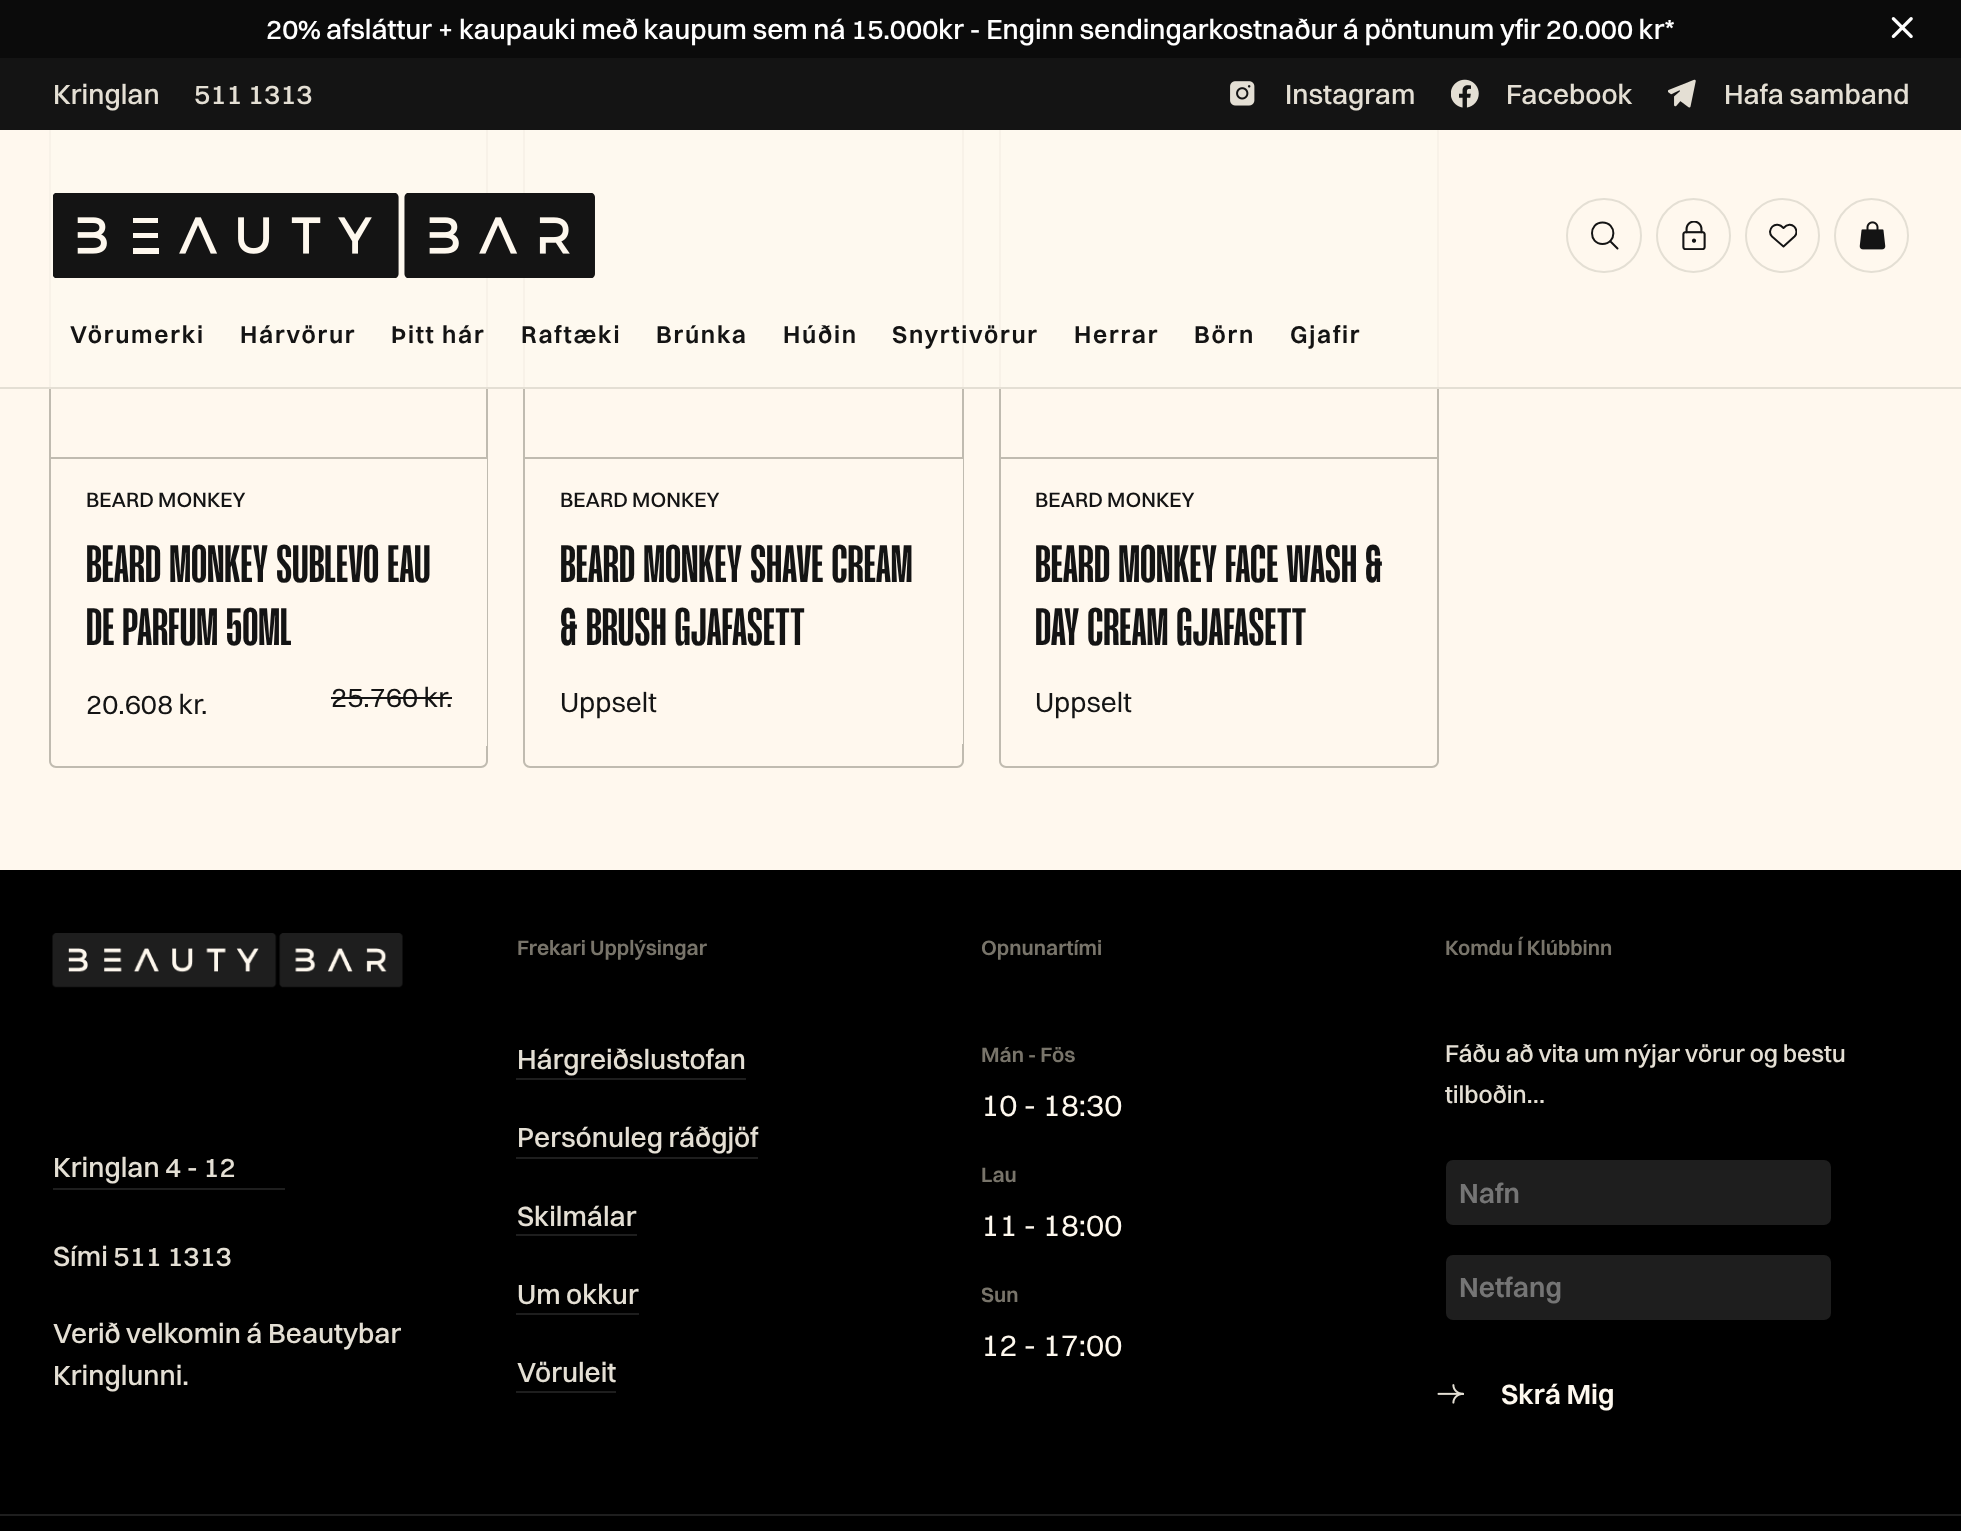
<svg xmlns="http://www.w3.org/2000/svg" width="1961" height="1531">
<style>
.a{font:500 28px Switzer;fill:#fff}
.b{font:500 28px Switzer;fill:#e4dfd4}
.c{font:600 24.5px Switzer;letter-spacing:1.75px;fill:#141414}
.d{font:500 21px Switzer;fill:#141414}
.e{font:600 52.5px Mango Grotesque;fill:#141414}
.f{font:28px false;fill:#141414}
.g{font:600 21px Switzer;fill:#78746a}
.h{font:31.5px false;fill:#fef8ee}
.i{font:500 24.5px Switzer;fill:#e4dfd4}
.j{font:600 28px Switzer;fill:#757575}
.k{font:600 28px Switzer;fill:#fef8ee}
</style>
<defs>
<clipPath id="clip1"><path d="M1769 221h28v28H1769z"/></clipPath>
</defs>
<rect width="100%" height="100%" fill="#fff8ee"/>
<rect fill="none" stroke="#c0bbb0" stroke-width="2" x="50" y="20" width="437" height="747" rx="6"/>
<rect fill="none" stroke="#c0bbb0" stroke-width="2" x="524" y="20" width="439" height="747" rx="6"/>
<rect fill="none" stroke="#c0bbb0" stroke-width="2" x="1000" y="20" width="438" height="747" rx="6"/>
<path fill="#0b0b0b" d="M0 0h1961v58H0z"/>
<image href="1.png" x="1891" y="17" width="22" height="22"/>
<path fill="#141414" d="M0 58h1961v72H0z"/>
<image href="2.png" x="1230" y="81" width="25" height="25"/>
<image href="3.png" x="1451" y="79" width="28" height="29"/>
<image href="4.png" x="1668" y="79" width="28" height="29"/>
<path fill="#fef8eee6" d="M49 130h1390v257H49z"/>
<path fill="#e4dfd4" d="M0 387h1961v2H0z"/>
<image href="5.png" x="53" y="193" width="542" height="85"/>
<rect fill="none" stroke="#e4dfd4" stroke-width="2" x="1567" y="199" width="74" height="73" rx="36.5"/>
<path fill="none" stroke="#141414" stroke-width="2" stroke-linecap="round" stroke-linejoin="round" d="M1602.5 244c14.5 0 14.5-21.5 0-21.5c-14 0-14 21.5 0 21.5zm15 4.5l-7.5-7.5"/>
<circle fill="none" stroke="#e4dfd4" stroke-width="2" cx="1693.5" cy="235.5" r="36.5"/>
<image href="6.png" x="1682" y="221" width="24" height="29"/>
<circle fill="none" stroke="#e4dfd4" stroke-width="2" cx="1782.5" cy="235.5" r="36.5"/>
<g clip-path="url(#clip1)">
<path fill="none" stroke="#141414" stroke-width="2" stroke-linecap="round" stroke-linejoin="round" d="M1783.5 246.5l-11.5-10c-6-6 3-17.5 11.5-8.5c8-9 17 2.5 11 8.5z"/>
</g>
<circle fill="none" stroke="#e4dfd4" stroke-width="2" cx="1871.5" cy="235.5" r="36.5"/>
<image href="7.png" x="1859" y="221" width="27" height="29"/>
<path fill="#fef8ee" d="M486 459h1v287H486z"/>
<path fill="#c0bbb0" d="M51 457h436v2H51z"/>
<path fill="#141414" d="M331 697h121v2H331z"/>
<path fill="#fef8ee" d="M962 459h1v285H962z"/>
<path fill="#c0bbb0" d="M525 457h438v2H525z"/>
<path fill="#c0bbb0" d="M1001 457h436v2H1001z"/>
<path fill="#000" d="M0 870h1961v661H0z"/>
<image href="8.png" x="52" y="933" width="351" height="55"/>
<path fill="#1e1e1e" d="M53 1188h232v2H53z"/>
<path fill="#1e1e1e" d="M516 1078h230v2H516z"/>
<path fill="#1e1e1e" d="M516 1157h242v2H516z"/>
<path fill="#1e1e1e" d="M516 1234h121v2H516z"/>
<path fill="#1e1e1e" d="M516 1313h123v2H516z"/>
<path fill="#1e1e1e" d="M516 1391h100v2H516z"/>
<rect fill="#1e1e1e" x="1446" y="1160" width="385" height="65" rx="7"/>
<rect fill="#1e1e1e" x="1446" y="1255" width="385" height="65" rx="7"/>
<image href="9.png" x="1437" y="1384" width="27" height="20"/>
<path fill="#1e1e1e" d="M0 1514h1961v2H0z"/>
<text class="a" x="266" y="39">20% afsláttur + kaupauki með kaupum sem ná 15.000kr - Enginn sendingarkostnaður á pöntunum yfir 20.000 kr*</text>
<text class="b" x="53" y="104">Kringlan</text>
<text class="b" x="194" y="104">511 1313</text>
<text class="b" x="1285" y="104">Instagram</text>
<text class="b" x="1506" y="104">Facebook</text>
<text class="b" x="1724" y="104">Hafa samband</text>
<text class="c" x="70" y="343">Vörumerki</text>
<text class="c" x="240" y="343">Hárvörur</text>
<text class="c" x="391" y="343">Þitt hár</text>
<text class="c" x="521" y="343">Raftæki</text>
<text class="c" x="656" y="343">Brúnka</text>
<text class="c" x="783" y="343">Húðin</text>
<text class="c" x="892" y="343">Snyrtivörur</text>
<text class="c" x="1074" y="343">Herrar</text>
<text class="c" x="1194" y="343">Börn</text>
<text class="c" x="1290" y="343">Gjafir</text>
<text class="d" x="86" y="507">BEARD MONKEY</text>
<text class="e" x="86" y="582">BEARD MONKEY SUBLEVO EAU</text>
<text class="e" x="86" y="645">DE PARFUM 50ML</text>
<text class="f" x="86" y="714">20.608 kr.</text>
<text class="f" x="331" y="707">25.760 kr.</text>
<text class="d" x="560" y="507">BEARD MONKEY</text>
<text class="e" x="560" y="582">BEARD MONKEY SHAVE CREAM</text>
<text class="e" x="560" y="645">&amp; BRUSH GJAFASETT</text>
<text class="f" x="560" y="712">Uppselt</text>
<text class="d" x="1035" y="507">BEARD MONKEY</text>
<text class="e" x="1035" y="582">BEARD MONKEY FACE WASH &amp;</text>
<text class="e" x="1035" y="645">DAY CREAM GJAFASETT</text>
<text class="f" x="1035" y="712">Uppselt</text>
<text class="b" x="53" y="1177">Kringlan 4 - 12</text>
<text class="b" x="53" y="1266">Sími 511 1313</text>
<text class="b" x="53" y="1343">Verið velkomin á Beautybar</text>
<text class="b" x="53" y="1385">Kringlunni.</text>
<text class="g" x="517" y="955">Frekari Upplýsingar</text>
<text class="b" x="517" y="1069">Hárgreiðslustofan</text>
<text class="b" x="517" y="1147">Persónuleg ráðgjöf</text>
<text class="b" x="517" y="1226">Skilmálar</text>
<text class="b" x="517" y="1304">Um okkur</text>
<text class="b" x="517" y="1382">Vöruleit</text>
<text class="g" x="981" y="955">Opnunartími</text>
<text class="g" x="981" y="1062">Mán - Fös</text>
<text class="h" x="981" y="1116">10 - 18:30</text>
<text class="g" x="981" y="1182">Lau</text>
<text class="h" x="981" y="1236">11 - 18:00</text>
<text class="g" x="981" y="1302">Sun</text>
<text class="h" x="981" y="1356">12 - 17:00</text>
<text class="g" x="1445" y="955">Komdu Í Klúbbinn</text>
<text class="i" x="1445" y="1062">Fáðu að vita um nýjar vörur og bestu</text>
<text class="i" x="1445" y="1103">tilboðin…</text>
<text class="j" x="1459" y="1203">Nafn</text>
<text class="j" x="1459" y="1297">Netfang</text>
<text class="k" x="1501" y="1404">Skrá Mig</text>
</svg>
